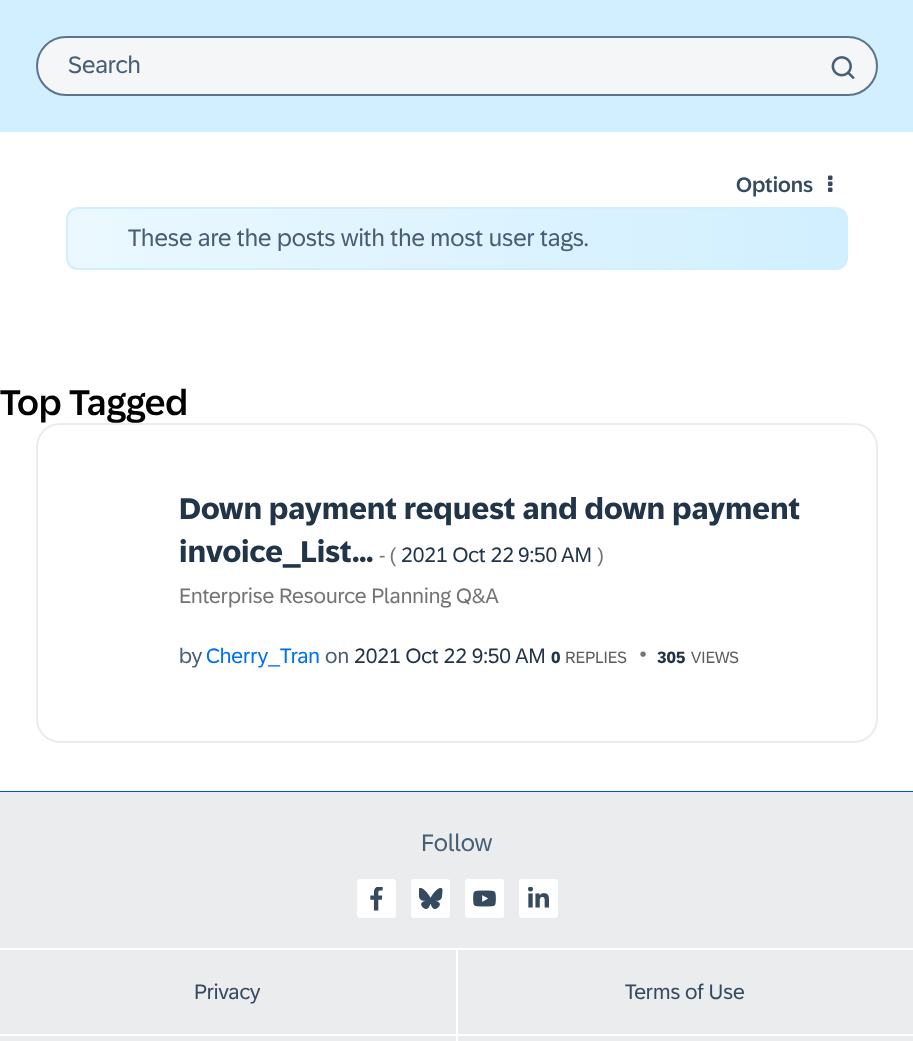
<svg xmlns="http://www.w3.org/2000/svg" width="913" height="1041">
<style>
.a{font:24px '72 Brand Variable';fill:#475e75}
.b{font:500 21px '72 Brand Variable';fill:#354a5f}
.c{font:500 36px '72 Brand Variable';fill:#000}
.d{font:bold 30px '72 Brand Variable';fill:#223548}
.e{font:20px '72 Brand Variable';fill:#747474}
.f{font:21px '72 Brand Variable';fill:#223548}
.g{font:21px '72 Brand Variable';fill:#747474}
.h{font:21px '72 Brand Variable';fill:#475e75}
.i{font:21px '72 Brand Variable';fill:#0070f2}
.j{font:bold 16.5px '72 Brand Variable';fill:#223548}
.k{font:16.5px '72 Brand Variable';fill:#5d5d5d}
.l{font:18px '72 Brand Variable';fill:#747474}
.m{font:21px '72 Brand Variable';fill:#354a5f}
</style>
<defs>
<clipPath id="clip1"><rect x="66" y="207" width="782" height="63" rx="12"/></clipPath>
<linearGradient id="g1" gradientUnits="userSpaceOnUse" x1="67" y1="221" x2="847" y2="256"><stop offset="0" stop-color="#ebf8ff"/><stop offset="1" stop-color="#d1efff"/></linearGradient>
</defs>
<rect width="100%" height="100%" fill="#fff"/>
<path fill="#d1efff" d="M0 0h913v132H0z"/>
<rect fill="#f5f6f7" stroke="#5b738b" stroke-width="2" x="37" y="37" width="840" height="58" rx="29"/>
<image href="1.png" x="831" y="56" width="24" height="23"/>
<image href="2.png" x="828" y="175" width="5" height="17"/>
<g clip-path="url(#clip1)">
<path fill="url(#g1)" d="M68 209h778v60H68z"/>
</g>
<rect fill="none" stroke="#d1efff" stroke-width="2" x="67" y="208" width="780" height="61" rx="11"/>
<rect fill="none" stroke="#eaecee" stroke-width="2" x="37" y="424" width="840" height="318" rx="23"/>
<path fill="#0058bf" d="M0 791h913v1H0z"/>
<path fill="#eaecee" d="M0 792h913v249H0z"/>
<rect fill="#fff" x="357" y="879" width="39" height="39" rx="3"/>
<image href="3.png" x="370" y="887" width="13" height="24"/>
<rect fill="#fff" x="411" y="879" width="39" height="39" rx="3"/>
<image href="4.png" x="419" y="887" width="24" height="22"/>
<rect fill="#fff" x="465" y="879" width="39" height="39" rx="3"/>
<image href="5.png" x="473" y="890" width="23" height="17"/>
<rect fill="#fff" x="519" y="879" width="39" height="39" rx="3"/>
<image href="6.png" x="528" y="887" width="21" height="21"/>
<path fill="#fff" d="M0 948h913v2H0z"/>
<path fill="#fff" d="M456 948h2v86H456z"/>
<path fill="#fff" d="M0 1034h913v2H0z"/>
<path fill="#fff" d="M456 1034h2v7H456z"/>
<text class="a" x="68" y="73">Search</text>
<text class="b" x="736" y="192">Options</text>
<text class="a" x="128" y="246">These are the posts with the most user tags.</text>
<text class="c" x="0" y="415">Top Tagged</text>
<text class="d" x="179" y="519">Down payment request and down payment</text>
<text class="d" x="179" y="562">invoice_List...</text>
<text class="e" x="379" y="562">- (</text>
<text class="f" x="401" y="562">2021 Oct 22</text>
<text class="f" x="518" y="562">9:50 AM</text>
<text class="e" x="597" y="562">)</text>
<text class="g" x="179" y="603">Enterprise Resource Planning Q&amp;A</text>
<text class="h" x="179" y="663">by</text>
<text class="i" x="206" y="663">Cherry_Tran</text>
<text class="h" x="325" y="663">on</text>
<text class="f" x="354" y="663">2021 Oct 22 9:50 AM</text>
<text class="j" x="551" y="663">0</text>
<text class="k" x="565" y="663">REPLIES</text>
<text class="l" x="640" y="660">•</text>
<text class="j" x="657" y="663">305</text>
<text class="k" x="691" y="663">VIEWS</text>
<text class="a" x="421" y="851">Follow</text>
<text class="m" x="194" y="999">Privacy</text>
<text class="m" x="625" y="999">Terms of Use</text>
</svg>
